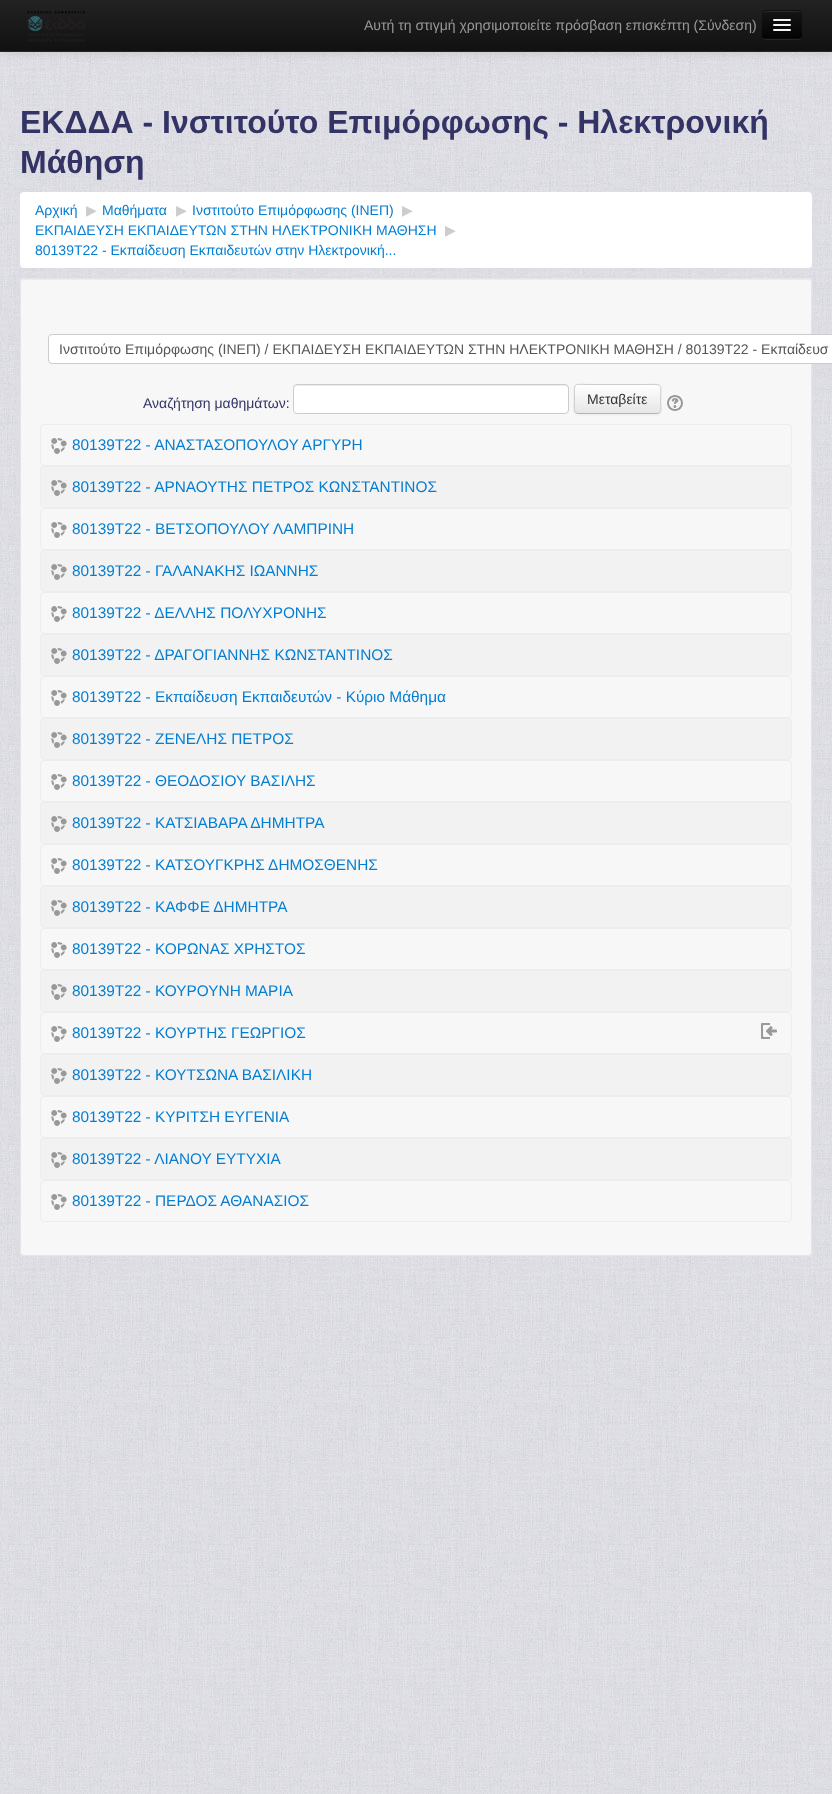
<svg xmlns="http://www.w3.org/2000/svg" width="832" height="1794">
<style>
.a{font:14px Liberation Sans;fill:#999}
.b{font:bold 32px Liberation Sans;fill:#336}
.c{font:14px Liberation Sans;fill:#047ed2}
.d{font:14px DejaVu Sans;fill:#ccc}
.e{font:14px Liberation Sans;fill:#555}
.f{font:14px Liberation Sans;fill:#336}
.g{font:14px Liberation Sans;fill:#333}
.h{font:15.4px Liberation Sans;fill:#047ed2}
</style>
<defs>
<linearGradient id="g1" gradientUnits="userSpaceOnUse" x1="416" y1="0" x2="416" y2="51"><stop offset="0" stop-color="#222"/><stop offset="1" stop-color="#111"/></linearGradient>
<clipPath id="clip1"><rect x="762" y="10" width="40" height="29" rx="4"/></clipPath>
<linearGradient id="g2" gradientUnits="userSpaceOnUse" x1="782" y1="11" x2="782" y2="38"><stop offset="0" stop-color="#151515"/><stop offset="1" stop-color="#040404"/></linearGradient>
<clipPath id="clip2"><rect x="574" y="384" width="87" height="30" rx="4"/></clipPath>
<linearGradient id="g3" gradientUnits="userSpaceOnUse" x1="618" y1="385" x2="618" y2="413"><stop offset="0" stop-color="#fff"/><stop offset="1" stop-color="#e6e6e6"/></linearGradient>
</defs>
<rect width="100%" height="100%" fill="#fff"/>
<image href="1.png" x="0" y="52" width="832" height="1742"/>
<path fill="#0000001a" filter="blur(5px)" d="M0 1h832v52H0z"/>
<path fill="url(#g1)" d="M0 0h832v51H0z"/>
<path fill="#252525" d="M0 51h832v1H0z"/>
<image href="2.png" x="27" y="11" width="58" height="31"/>
<path fill="#272727" d="M762 35c0 6 5 5 9 5h22c4 0 9 1 9-5c0 2-2 4-4 4h-32c-2 0-4-2-4-4z"/>
<rect fill="#0e0e0e" x="762" y="10" width="40" height="29" rx="4"/>
<g clip-path="url(#clip1)">
<path fill="url(#g2)" d="M762 11h40v27H762z"/>
</g>
<path fill="#2c2c2c" d="M766 12h32c2 0 3 1 3 3c0-5-4-4-8.5-4h-21c-4.5 0-8.5-1-8.5 4c0-2 1-3 3-3z"/>
<path fill="none" stroke="#00000040" d="M800.5 37.5c-.5 .5-1.5 1-2.5 1h-32c-1 0-2-.5-2.5-1"/>
<path fill="#0b0b0b" d="M773 20.5c-1 2 3.5 1.5 3.5 1.5h11c0 0 4.5 .5 3.5-1.5c-1 1-7.5 .5-9 .5c-1.5 0-8 .5-9-.5z"/>
<rect fill="#f5f5f5" x="773" y="19" width="18" height="2" rx="1"/>
<path fill="#080808" d="M773 25.5c-1 2 3.5 1.5 3.5 1.5h11c0 0 4.5 .5 3.5-1.5c-1 1-7.5 .5-9 .5c-1.5 0-8 .5-9-.5z"/>
<rect fill="#f5f5f5" x="773" y="24" width="18" height="2" rx="1"/>
<rect fill="#f5f5f5" x="773" y="29" width="18" height="2" rx="1"/>
<rect fill="#fff" x="20" y="192" width="792" height="76" rx="4"/>
<rect fill="#f7f7f7" x="20" y="278" width="792" height="978" rx="4"/>
<path fill="#ebebeb" d="M24 280h784c2 0 3 1 3 3c0-2-1-4-3-4h-784c-2 0-3 2-3 4c0-2 1-3 3-3z"/>
<rect fill="none" stroke="#e5e5e5" x="20.5" y="278.5" width="791" height="977" rx="3.5"/>
<rect fill="#fff" stroke="#ccc" x="48.5" y="334.5" width="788" height="29" rx="3.5"/>
<rect fill="#fff" x="293" y="384" width="276" height="30" rx="4"/>
<path fill="#ececec" d="M297 386h268c2 0 3 1 3 3v-1c0-2-1-3-3-3h-268c-2 0-3 1-3 3v1c0-2 1-3 3-3z"/>
<rect fill="none" stroke="#ccc" x="293.5" y="384.5" width="275" height="29" rx="3.5"/>
<rect fill="#0000000d" filter="blur(1px)" x="574" y="385" width="87" height="30" rx="4"/>
<g clip-path="url(#clip2)">
<path fill="url(#g3)" d="M574 385h87v28H574z"/>
</g>
<path fill="none" stroke="#b3b3b3" d="M659.5 412.5l-2 1h-80l-2-1"/>
<path fill="none" stroke="#ccc" d="M575.5 412.5c-2-2-1-10.5-1-13.5c0-17.5-2-14.5 16.5-14.5h53c20.5 0 16.5-2.5 16.5 18c0 3 1.5 7.5-1 10"/>
<image href="3.png" x="667" y="395" width="16" height="16"/>
<rect fill="none" stroke="#ededed" x="40.5" y="424.5" width="751" height="41" rx="3.5"/>
<image href="4.png" x="51" y="438" width="16" height="16"/>
<rect fill="#f2f2f2" stroke="#ededed" x="40.5" y="466.5" width="751" height="41" rx="3.5"/>
<image href="5.png" x="51" y="480" width="16" height="16"/>
<rect fill="none" stroke="#ededed" x="40.5" y="508.5" width="751" height="41" rx="3.5"/>
<image href="4.png" x="51" y="522" width="16" height="16"/>
<rect fill="#f2f2f2" stroke="#ededed" x="40.5" y="550.5" width="751" height="41" rx="3.5"/>
<image href="5.png" x="51" y="564" width="16" height="16"/>
<rect fill="none" stroke="#ededed" x="40.5" y="592.5" width="751" height="41" rx="3.5"/>
<image href="4.png" x="51" y="606" width="16" height="16"/>
<rect fill="#f2f2f2" stroke="#ededed" x="40.5" y="634.5" width="751" height="41" rx="3.5"/>
<image href="5.png" x="51" y="648" width="16" height="16"/>
<rect fill="none" stroke="#ededed" x="40.5" y="676.5" width="751" height="41" rx="3.5"/>
<image href="4.png" x="51" y="690" width="16" height="16"/>
<rect fill="#f2f2f2" stroke="#ededed" x="40.5" y="718.5" width="751" height="41" rx="3.5"/>
<image href="5.png" x="51" y="732" width="16" height="16"/>
<rect fill="none" stroke="#ededed" x="40.5" y="760.5" width="751" height="41" rx="3.5"/>
<image href="4.png" x="51" y="774" width="16" height="16"/>
<rect fill="#f2f2f2" stroke="#ededed" x="40.5" y="802.5" width="751" height="41" rx="3.5"/>
<image href="5.png" x="51" y="816" width="16" height="16"/>
<rect fill="none" stroke="#ededed" x="40.5" y="844.5" width="751" height="41" rx="3.5"/>
<image href="4.png" x="51" y="858" width="16" height="16"/>
<rect fill="#f2f2f2" stroke="#ededed" x="40.5" y="886.5" width="751" height="41" rx="3.5"/>
<image href="5.png" x="51" y="900" width="16" height="16"/>
<rect fill="none" stroke="#ededed" x="40.5" y="928.5" width="751" height="41" rx="3.5"/>
<image href="4.png" x="51" y="942" width="16" height="16"/>
<rect fill="#f2f2f2" stroke="#ededed" x="40.5" y="970.5" width="751" height="41" rx="3.5"/>
<image href="5.png" x="51" y="984" width="16" height="16"/>
<rect fill="none" stroke="#ededed" x="40.5" y="1012.5" width="751" height="41" rx="3.5"/>
<image href="4.png" x="51" y="1026" width="16" height="16"/>
<image href="6.png" x="761" y="1023" width="16" height="16"/>
<rect fill="#f2f2f2" stroke="#ededed" x="40.5" y="1054.5" width="751" height="41" rx="3.5"/>
<image href="5.png" x="51" y="1068" width="16" height="16"/>
<rect fill="none" stroke="#ededed" x="40.5" y="1096.5" width="751" height="41" rx="3.5"/>
<image href="4.png" x="51" y="1110" width="16" height="16"/>
<rect fill="#f2f2f2" stroke="#ededed" x="40.5" y="1138.5" width="751" height="41" rx="3.5"/>
<image href="5.png" x="51" y="1152" width="16" height="16"/>
<rect fill="none" stroke="#ededed" x="40.5" y="1180.5" width="751" height="41" rx="3.5"/>
<image href="4.png" x="51" y="1194" width="16" height="16"/>
<text class="a" x="364" y="30">Αυτή τη στιγμή χρησιμοποιείτε πρόσβαση επισκέπτη (Σύνδεση)</text>
<text class="b" x="20" y="133">ΕΚΔΔΑ - Ινστιτούτο Επιμόρφωσης - Ηλεκτρονική</text>
<text class="b" x="20" y="173">Μάθηση</text>
<text class="c" x="35" y="215">Αρχική</text>
<text class="d" x="86" y="215">▶︎</text>
<text class="c" x="102" y="215">Μαθήματα</text>
<text class="d" x="176" y="215">▶︎</text>
<text class="c" x="192" y="215">Ινστιτούτο Επιμόρφωσης (ΙΝΕΠ)</text>
<text class="d" x="402" y="215">▶︎</text>
<text class="c" x="35" y="235">ΕΚΠΑΙΔΕΥΣΗ ΕΚΠΑΙΔΕΥΤΩΝ ΣΤΗΝ ΗΛΕΚΤΡΟΝΙΚΗ ΜΑΘΗΣΗ</text>
<text class="d" x="445" y="235">▶︎</text>
<text class="c" x="35" y="255">80139Τ22 - Εκπαίδευση Εκπαιδευτών στην Ηλεκτρονική...</text>
<text class="e" x="59" y="354">Ινστιτούτο Επιμόρφωσης (ΙΝΕΠ) / ΕΚΠΑΙΔΕΥΣΗ ΕΚΠΑΙΔΕΥΤΩΝ ΣΤΗΝ ΗΛΕΚΤΡΟΝΙΚΗ ΜΑΘΗΣΗ / 80139Τ22 - Εκπαίδευσ</text>
<text class="f" x="143" y="408">Αναζήτηση μαθημάτων:</text>
<text class="g" x="587" y="404">Μεταβείτε</text>
<text class="h" x="72" y="450">80139Τ22 - ΑΝΑΣΤΑΣΟΠΟΥΛΟΥ ΑΡΓΥΡΗ</text>
<text class="h" x="72" y="492">80139Τ22 - ΑΡΝΑΟΥΤΗΣ ΠΕΤΡΟΣ ΚΩΝΣΤΑΝΤΙΝΟΣ</text>
<text class="h" x="72" y="534">80139Τ22 - ΒΕΤΣΟΠΟΥΛΟΥ ΛΑΜΠΡΙΝΗ</text>
<text class="h" x="72" y="576">80139Τ22 - ΓΑΛΑΝΑΚΗΣ ΙΩΑΝΝΗΣ</text>
<text class="h" x="72" y="618">80139Τ22 - ΔΕΛΛΗΣ ΠΟΛΥΧΡΟΝΗΣ</text>
<text class="h" x="72" y="660">80139Τ22 - ΔΡΑΓΟΓΙΑΝΝΗΣ ΚΩΝΣΤΑΝΤΙΝΟΣ</text>
<text class="h" x="72" y="702">80139Τ22 - Εκπαίδευση Εκπαιδευτών - Κύριο Μάθημα</text>
<text class="h" x="72" y="744">80139Τ22 - ΖΕΝΕΛΗΣ ΠΕΤΡΟΣ</text>
<text class="h" x="72" y="786">80139Τ22 - ΘΕΟΔΟΣΙΟΥ ΒΑΣΙΛΗΣ</text>
<text class="h" x="72" y="828">80139Τ22 - ΚΑΤΣΙΑΒΑΡΑ ΔΗΜΗΤΡΑ</text>
<text class="h" x="72" y="870">80139Τ22 - ΚΑΤΣΟΥΓΚΡΗΣ ΔΗΜΟΣΘΕΝΗΣ</text>
<text class="h" x="72" y="912">80139Τ22 - ΚΑΦΦΕ ΔΗΜΗΤΡΑ</text>
<text class="h" x="72" y="954">80139Τ22 - ΚΟΡΩΝΑΣ ΧΡΗΣΤΟΣ</text>
<text class="h" x="72" y="996">80139Τ22 - ΚΟΥΡΟΥΝΗ ΜΑΡΙΑ</text>
<text class="h" x="72" y="1038">80139Τ22 - ΚΟΥΡΤΗΣ ΓΕΩΡΓΙΟΣ</text>
<text class="h" x="72" y="1080">80139Τ22 - ΚΟΥΤΣΩΝΑ ΒΑΣΙΛΙΚΗ</text>
<text class="h" x="72" y="1122">80139Τ22 - ΚΥΡΙΤΣΗ ΕΥΓΕΝΙΑ</text>
<text class="h" x="72" y="1164">80139Τ22 - ΛΙΑΝΟΥ ΕΥΤΥΧΙΑ</text>
<text class="h" x="72" y="1206">80139Τ22 - ΠΕΡΔΟΣ ΑΘΑΝΑΣΙΟΣ</text>
</svg>
